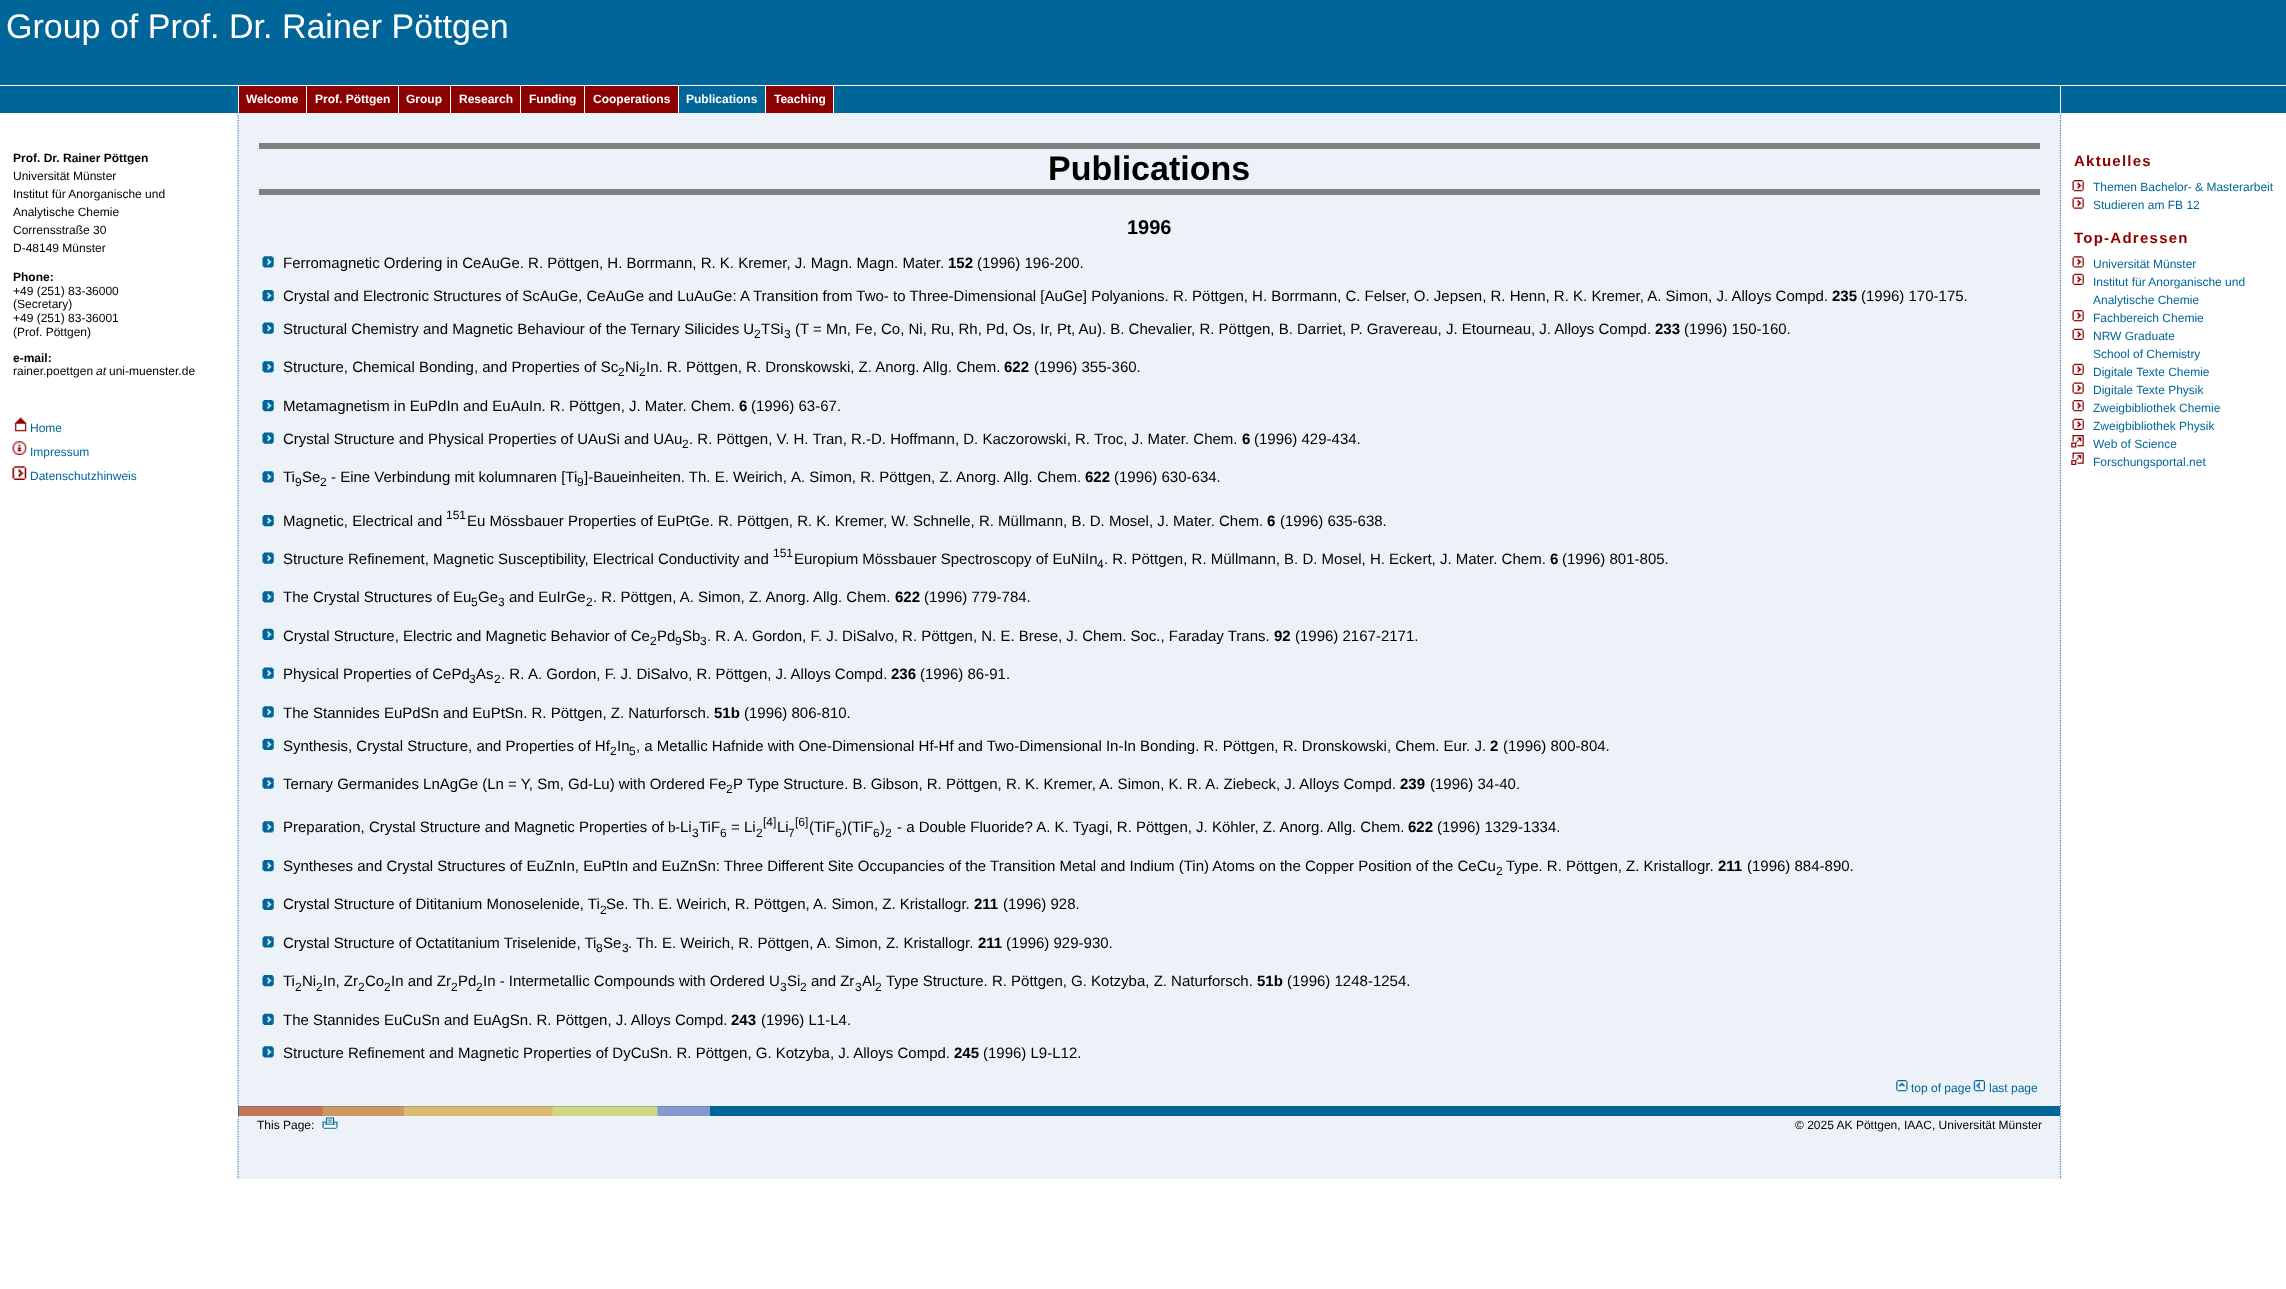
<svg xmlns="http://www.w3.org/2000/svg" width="2286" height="1289">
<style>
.a{font:34px Liberation Sans;fill:#fff}
.b{font:bold 12px Liberation Sans;fill:#fff}
.c{font:bold 12px Liberation Sans;fill:#000}
.d{font:12px Liberation Sans;fill:#000}
.e{font:italic 12px Liberation Sans;fill:#000}
.f{font:12px Liberation Sans;fill:#069}
.g{font:bold 34px Liberation Sans;fill:#000}
.h{font:bold 20px Liberation Sans;fill:#000}
.i{font:15px Liberation Sans;fill:#000}
.j{font:bold 15px Liberation Sans;fill:#000}
.k{font:15px Liberation Serif;fill:#000}
.l{font:bold 15px Liberation Sans;letter-spacing:1.25px;fill:#8b0000}
</style>
<rect width="100%" height="100%" fill="#fff"/>
<path fill="#069" d="M0 0h2286v85H0z"/>
<path fill="#ecf2f7" d="M238 113h1823v993H238z"/>
<path fill="none" stroke="#4682b4" stroke-width="1.2" stroke-dasharray="1.25 1.25" d="M238 112.5v993.5"/>
<path fill="#069" d="M0 86h238v27H0z"/>
<path fill="#069" d="M679 86h1381v27H679z"/>
<path fill="#8b0000" d="M239 86h159v27H239z"/>
<path fill="#fff" d="M306 86h1v27H306z"/>
<path fill="#8b0000" d="M399 86h51v27H399z"/>
<path fill="#8b0000" d="M451 86h69v27H451z"/>
<path fill="#8b0000" d="M521 86h63v27H521z"/>
<path fill="#8b0000" d="M585 86h93v27H585z"/>
<path fill="#fff" d="M765 86h1v27H765z"/>
<path fill="#8b0000" d="M766 86h67v27H766z"/>
<path fill="#fff" d="M833 86h1v27H833z"/>
<path fill="none" stroke="#4682b4" stroke-width="1.2" stroke-dasharray="1.25 1.25" d="M2060.5 112.5v993.5"/>
<path fill="#069" d="M2061 86h225v27H2061z"/>
<path fill="#fff" d="M2060 112h1v1H2060z"/>
<image href="1.png" x="14" y="417" width="13" height="15"/>
<image href="2.png" x="12" y="441" width="15" height="14"/>
<image href="3.png" x="12" y="466" width="15" height="14"/>
<path fill="#808080" d="M259 143h1781v6H259z"/>
<path fill="#808080" d="M259 189h1781v6H259z"/>
<image href="4.png" x="262" y="256" width="12" height="12"/>
<image href="5.png" x="262" y="290" width="12" height="12"/>
<image href="6.png" x="262" y="322" width="12" height="12"/>
<image href="7.png" x="262" y="361" width="12" height="12"/>
<image href="8.png" x="262" y="400" width="12" height="12"/>
<image href="6.png" x="262" y="432" width="12" height="12"/>
<image href="7.png" x="262" y="471" width="12" height="12"/>
<image href="8.png" x="262" y="515" width="12" height="12"/>
<image href="6.png" x="262" y="552" width="12" height="12"/>
<image href="7.png" x="262" y="591" width="12" height="12"/>
<image href="9.png" x="262" y="628" width="12" height="12"/>
<image href="6.png" x="262" y="667" width="12" height="12"/>
<image href="7.png" x="262" y="706" width="12" height="12"/>
<image href="9.png" x="262" y="738" width="12" height="12"/>
<image href="10.png" x="262" y="777" width="12" height="12"/>
<image href="7.png" x="262" y="821" width="12" height="12"/>
<image href="8.png" x="262" y="860" width="12" height="12"/>
<image href="9.png" x="262" y="898" width="12" height="12"/>
<image href="7.png" x="262" y="936" width="12" height="12"/>
<image href="8.png" x="262" y="975" width="12" height="12"/>
<image href="9.png" x="262" y="1013" width="12" height="12"/>
<image href="7.png" x="262" y="1046" width="12" height="12"/>
<image href="11.png" x="1896" y="1080" width="12" height="12"/>
<image href="12.png" x="1973" y="1080" width="12" height="12"/>
<image href="13.png" x="2072" y="180" width="12" height="12"/>
<image href="14.png" x="2072" y="197" width="12" height="12"/>
<image href="15.png" x="2072" y="256" width="12" height="12"/>
<image href="16.png" x="2072" y="273" width="12" height="12"/>
<image href="13.png" x="2072" y="310" width="12" height="12"/>
<image href="16.png" x="2072" y="328" width="12" height="12"/>
<image href="16.png" x="2072" y="363" width="12" height="12"/>
<image href="14.png" x="2072" y="382" width="12" height="12"/>
<image href="13.png" x="2072" y="400" width="12" height="12"/>
<image href="16.png" x="2072" y="418" width="12" height="12"/>
<image href="17.png" x="2071" y="435" width="13" height="13"/>
<image href="18.png" x="2071" y="452" width="13" height="13"/>
<path fill="#069" d="M238 1106h1822v10H238z"/>
<image href="19.png" x="238" y="1106" width="472" height="10"/>
<path fill="none" stroke="#4682b4" stroke-width="1.2" stroke-dasharray="1.25 1.25" d="M238 1106v13"/>
<path fill="#ecf2f7" d="M238 1116h1823v63H238z"/>
<path fill="none" stroke="#4682b4" stroke-width="1.2" stroke-dasharray="1.25 1.25" d="M238 1116v63"/>
<path fill="#fff" d="M237 1106h1v13H237z"/>
<path fill="none" stroke="#4682b4" stroke-width="1.2" stroke-dasharray="1.25 1.25" d="M2060.5 1116v63"/>
<path fill="#fff" d="M2060 1116h2v3H2060z"/>
<path fill="none" stroke="#4682b4" stroke-width="1.2" stroke-dasharray="1.25 1.25" d="M2060.5 1106v13"/>
<image href="20.png" x="322" y="1117" width="16" height="12"/>
<text class="a" x="6" y="38">Group of Prof. Dr. Rainer Pöttgen</text>
<text class="b" x="246" y="103">Welcome</text>
<text class="b" x="315" y="103">Prof. Pöttgen</text>
<text class="b" x="406" y="103">Group</text>
<text class="b" x="459" y="103">Research</text>
<text class="b" x="529" y="103">Funding</text>
<text class="b" x="593" y="103">Cooperations</text>
<text class="b" x="686" y="103">Publications</text>
<text class="b" x="774" y="103">Teaching</text>
<text class="c" x="13" y="162">Prof. Dr. Rainer Pöttgen</text>
<text class="d" x="13" y="180">Universität Münster</text>
<text class="d" x="13" y="198">Institut für Anorganische und</text>
<text class="d" x="13" y="216">Analytische Chemie</text>
<text class="d" x="13" y="234">Corrensstraße 30</text>
<text class="d" x="13" y="252">D-48149 Münster</text>
<text class="c" x="13" y="281">Phone:</text>
<text class="d" x="13" y="295">+49 (251) 83-36000</text>
<text class="d" x="13" y="308">(Secretary)</text>
<text class="d" x="13" y="322">+49 (251) 83-36001</text>
<text class="d" x="13" y="336">(Prof. Pöttgen)</text>
<text class="c" x="13" y="362">e-mail:</text>
<text class="d" x="13" y="375">rainer.poettgen</text>
<text class="e" x="96" y="375">at</text>
<text class="d" x="109" y="375">uni-muenster.de</text>
<text class="f" x="30" y="432">Home</text>
<text class="f" x="30" y="456">Impressum</text>
<text class="f" x="30" y="480">Datenschutzhinweis</text>
<text class="g" x="1048" y="180">Publications</text>
<text class="h" x="1127" y="234">1996</text>
<text class="i" x="283" y="268">Ferromagnetic Ordering in CeAuGe. R. Pöttgen, H. Borrmann, R. K. Kremer, J. Magn. Magn. Mater.</text>
<text class="j" x="948" y="268">152</text>
<text class="i" x="977" y="268">(1996) 196-200.</text>
<text class="i" x="283" y="301">Crystal and Electronic Structures of ScAuGe, CeAuGe and LuAuGe: A Transition from Two- to Three-Dimensional [AuGe] Polyanions. R. Pöttgen, H. Borrmann, C. Felser, O. Jepsen, R. Henn, R. K. Kremer, A. Simon, J. Alloys Compd.</text>
<text class="j" x="1832" y="301">235</text>
<text class="i" x="1861" y="301">(1996) 170-175.</text>
<text class="i" x="283" y="334">Structural Chemistry and Magnetic Behaviour of the</text>
<text class="i" x="630" y="334">Ternary Silicides U</text>
<text class="d" x="754" y="338">2</text>
<text class="i" x="761" y="334">TSi</text>
<text class="d" x="784" y="338">3</text>
<text class="i" x="795" y="334">(T = Mn, Fe, Co, Ni, Ru, Rh, Pd, Os, Ir, Pt, Au). B. Chevalier, R. Pöttgen, B. Darriet, P. Gravereau, J. Etourneau, J. Alloys Compd.</text>
<text class="j" x="1655" y="334">233</text>
<text class="i" x="1684" y="334">(1996) 150-160.</text>
<text class="i" x="283" y="372">Structure, Chemical Bonding, and Properties of Sc</text>
<text class="d" x="618" y="376">2</text>
<text class="i" x="625" y="372">Ni</text>
<text class="d" x="639" y="376">2</text>
<text class="i" x="646" y="372">In. R. Pöttgen, R. Dronskowski, Z. Anorg. Allg. Chem.</text>
<text class="j" x="1004" y="372">622</text>
<text class="i" x="1034" y="372">(1996) 355-360.</text>
<text class="i" x="283" y="411">Metamagnetism in EuPdIn and EuAuIn. R. Pöttgen, J. Mater. Chem.</text>
<text class="j" x="739" y="411">6</text>
<text class="i" x="751" y="411">(1996) 63-67.</text>
<text class="i" x="283" y="444">Crystal Structure and Physical Properties of UAuSi and UAu</text>
<text class="d" x="682" y="448">2</text>
<text class="i" x="689" y="444">. R. Pöttgen, V. H. Tran, R.-D. Hoffmann, D. Kaczorowski, R. Troc, J. Mater. Chem.</text>
<text class="j" x="1242" y="444">6</text>
<text class="i" x="1254" y="444">(1996) 429-434.</text>
<text class="i" x="283" y="482">Ti</text>
<text class="d" x="295" y="486">9</text>
<text class="i" x="302" y="482">Se</text>
<text class="d" x="320" y="486">2</text>
<text class="i" x="331" y="482">- Eine Verbindung mit kolumnaren [Ti</text>
<text class="d" x="577" y="486">9</text>
<text class="i" x="584" y="482">]-Baueinheiten. Th. E. Weirich,</text>
<text class="i" x="791" y="482">A. Simon, R. Pöttgen, Z. Anorg. Allg. Chem.</text>
<text class="j" x="1085" y="482">622</text>
<text class="i" x="1114" y="482">(1996) 630-634.</text>
<text class="i" x="283" y="526">Magnetic, Electrical and</text>
<text class="d" x="446" y="519">151</text>
<text class="i" x="467" y="526">Eu Mössbauer Properties of EuPtGe. R. Pöttgen, R. K. Kremer, W. Schnelle, R. Müllmann, B. D. Mosel, J. Mater. Chem.</text>
<text class="j" x="1267" y="526">6</text>
<text class="i" x="1280" y="526">(1996) 635-638.</text>
<text class="i" x="283" y="564">Structure Refinement, Magnetic Susceptibility, Electrical Conductivity and</text>
<text class="d" x="773" y="557">151</text>
<text class="i" x="794" y="564">Europium Mössbauer Spectroscopy of EuNiIn</text>
<text class="d" x="1097" y="568">4</text>
<text class="i" x="1104" y="564">. R. Pöttgen, R. Müllmann, B. D. Mosel, H. Eckert, J. Mater. Chem.</text>
<text class="j" x="1550" y="564">6</text>
<text class="i" x="1562" y="564">(1996) 801-805.</text>
<text class="i" x="283" y="602">The Crystal Structures of Eu</text>
<text class="d" x="471" y="606">5</text>
<text class="i" x="478" y="602">Ge</text>
<text class="d" x="498" y="606">3</text>
<text class="i" x="509" y="602">and EuIrGe</text>
<text class="d" x="586" y="606">2</text>
<text class="i" x="593" y="602">. R. Pöttgen, A. Simon, Z. Anorg.</text>
<text class="i" x="813" y="602">Allg. Chem.</text>
<text class="j" x="895" y="602">622</text>
<text class="i" x="924" y="602">(1996) 779-784.</text>
<text class="i" x="283" y="641">Crystal Structure, Electric and Magnetic Behavior of Ce</text>
<text class="d" x="650" y="645">2</text>
<text class="i" x="657" y="641">Pd</text>
<text class="d" x="675" y="645">9</text>
<text class="i" x="682" y="641">Sb</text>
<text class="d" x="700" y="645">3</text>
<text class="i" x="707" y="641">. R. A. Gordon, F. J. DiSalvo, R. Pöttgen, N. E. Brese, J. Chem. Soc., Faraday Trans.</text>
<text class="j" x="1274" y="641">92</text>
<text class="i" x="1295" y="641">(1996) 2167-2171.</text>
<text class="i" x="283" y="679">Physical Properties of CePd</text>
<text class="d" x="469" y="683">3</text>
<text class="i" x="476" y="679">As</text>
<text class="d" x="494" y="683">2</text>
<text class="i" x="501" y="679">. R.</text>
<text class="i" x="528" y="679">A. Gordon, F. J. DiSalvo, R. Pöttgen, J. Alloys Compd.</text>
<text class="j" x="891" y="679">236</text>
<text class="i" x="920" y="679">(1996) 86-91.</text>
<text class="i" x="283" y="718">The Stannides EuPdSn and EuPtSn. R. Pöttgen, Z. Naturforsch.</text>
<text class="j" x="714" y="718">51b</text>
<text class="i" x="744" y="718">(1996) 806-810.</text>
<text class="i" x="283" y="751">Synthesis, Crystal Structure, and Properties of Hf</text>
<text class="d" x="610" y="755">2</text>
<text class="i" x="617" y="751">In</text>
<text class="d" x="629" y="755">5</text>
<text class="i" x="636" y="751">, a Metallic Hafnide with One-Dimensional Hf-Hf and Two-Dimensional In-In Bonding. R. Pöttgen, R. Dronskowski, Chem. Eur. J.</text>
<text class="j" x="1490" y="751">2</text>
<text class="i" x="1503" y="751">(1996) 800-804.</text>
<text class="i" x="283" y="789">Ternary Germanides LnAgGe (Ln = Y, Sm, Gd-Lu) with Ordered Fe</text>
<text class="d" x="726" y="793">2</text>
<text class="i" x="733" y="789">P Type Structure. B. Gibson, R. Pöttgen, R. K. Kremer, A. Simon, K. R. A. Ziebeck, J. Alloys Compd.</text>
<text class="j" x="1400" y="789">239</text>
<text class="i" x="1430" y="789">(1996) 34-40.</text>
<text class="i" x="283" y="832">Preparation, Crystal Structure and Magnetic Properties of</text>
<text class="k" x="668" y="832">b</text>
<text class="i" x="675" y="832">-Li</text>
<text class="d" x="692" y="837">3</text>
<text class="i" x="699" y="832">TiF</text>
<text class="d" x="720" y="837">6</text>
<text class="i" x="731" y="832">= Li</text>
<text class="d" x="756" y="837">2</text>
<text class="d" x="763" y="826">[4]</text>
<text class="i" x="777" y="832">Li</text>
<text class="d" x="788" y="837">7</text>
<text class="d" x="795" y="826">[6]</text>
<text class="i" x="809" y="832">(TiF</text>
<text class="d" x="835" y="837">6</text>
<text class="i" x="842" y="832">)(TiF</text>
<text class="d" x="873" y="837">6</text>
<text class="i" x="880" y="832">)</text>
<text class="d" x="885" y="837">2</text>
<text class="i" x="897" y="832">- a Double Fluoride? A. K. Tyagi, R. Pöttgen, J. Köhler, Z. Anorg. Allg. Chem.</text>
<text class="j" x="1408" y="832">622</text>
<text class="i" x="1437" y="832">(1996) 1329-1334.</text>
<text class="i" x="283" y="871">Syntheses and Crystal Structures of EuZnIn, EuPtIn and EuZnSn: Three Different Site Occupancies of the Transition Metal and Indium (Tin) Atoms on the Copper Position of the CeCu</text>
<text class="d" x="1496" y="875">2</text>
<text class="i" x="1506" y="871">Type. R. Pöttgen, Z. Kristallogr.</text>
<text class="j" x="1718" y="871">211</text>
<text class="i" x="1747" y="871">(1996) 884-890.</text>
<text class="i" x="283" y="909">Crystal Structure of Dititanium Monoselenide, Ti</text>
<text class="d" x="600" y="914">2</text>
<text class="i" x="606" y="909">Se. Th. E. Weirich, R. Pöttgen, A. Simon, Z. Kristallogr.</text>
<text class="j" x="974" y="909">211</text>
<text class="i" x="1003" y="909">(1996) 928.</text>
<text class="i" x="283" y="948">Crystal Structure of Octatitanium Triselenide, Ti</text>
<text class="d" x="596" y="952">8</text>
<text class="i" x="603" y="948">Se</text>
<text class="d" x="622" y="952">3</text>
<text class="i" x="628" y="948">. Th. E. Weirich, R. Pöttgen, A. Simon, Z. Kristallogr.</text>
<text class="j" x="978" y="948">211</text>
<text class="i" x="1006" y="948">(1996) 929-930.</text>
<text class="i" x="283" y="986">Ti</text>
<text class="d" x="295" y="991">2</text>
<text class="i" x="302" y="986">Ni</text>
<text class="d" x="316" y="991">2</text>
<text class="i" x="323" y="986">In, Zr</text>
<text class="d" x="358" y="991">2</text>
<text class="i" x="365" y="986">Co</text>
<text class="d" x="384" y="991">2</text>
<text class="i" x="391" y="986">In and Zr</text>
<text class="d" x="451" y="991">2</text>
<text class="i" x="458" y="986">Pd</text>
<text class="d" x="476" y="991">2</text>
<text class="i" x="483" y="986">In - Intermetallic Compounds with Ordered U</text>
<text class="d" x="780" y="991">3</text>
<text class="i" x="787" y="986">Si</text>
<text class="d" x="800" y="991">2</text>
<text class="i" x="811" y="986">and Zr</text>
<text class="d" x="855" y="991">3</text>
<text class="i" x="862" y="986">Al</text>
<text class="d" x="875" y="991">2</text>
<text class="i" x="886" y="986">Type Structure. R. Pöttgen, G. Kotzyba, Z. Naturforsch.</text>
<text class="j" x="1257" y="986">51b</text>
<text class="i" x="1287" y="986">(1996) 1248-1254.</text>
<text class="i" x="283" y="1025">The Stannides EuCuSn and EuAgSn. R. Pöttgen, J. Alloys Compd.</text>
<text class="j" x="731" y="1025">243</text>
<text class="i" x="761" y="1025">(1996) L1-L4.</text>
<text class="i" x="283" y="1058">Structure Refinement and Magnetic Properties of DyCuSn. R. Pöttgen, G. Kotzyba, J. Alloys Compd.</text>
<text class="j" x="954" y="1058">245</text>
<text class="i" x="983" y="1058">(1996) L9-L12.</text>
<text class="f" x="1911" y="1092">top of page</text>
<text class="f" x="1989" y="1092">last page</text>
<text class="l" x="2074" y="166">Aktuelles</text>
<text class="f" x="2093" y="191">Themen Bachelor- &amp; Masterarbeit</text>
<text class="f" x="2093" y="209">Studieren am FB 12</text>
<text class="l" x="2074" y="243">Top-Adressen</text>
<text class="f" x="2093" y="268">Universität Münster</text>
<text class="f" x="2093" y="286">Institut für Anorganische und</text>
<text class="f" x="2093" y="304">Analytische Chemie</text>
<text class="f" x="2093" y="322">Fachbereich Chemie</text>
<text class="f" x="2093" y="340">NRW Graduate</text>
<text class="f" x="2093" y="358">School of Chemistry</text>
<text class="f" x="2093" y="376">Digitale Texte Chemie</text>
<text class="f" x="2093" y="394">Digitale Texte Physik</text>
<text class="f" x="2093" y="412">Zweigbibliothek Chemie</text>
<text class="f" x="2093" y="430">Zweigbibliothek Physik</text>
<text class="f" x="2093" y="448">Web of Science</text>
<text class="f" x="2093" y="466">Forschungsportal.net</text>
<text class="d" x="257" y="1129">This Page:</text>
<text class="d" x="1795" y="1129">© 2025 AK Pöttgen, IAAC, Universität Münster</text>
</svg>
